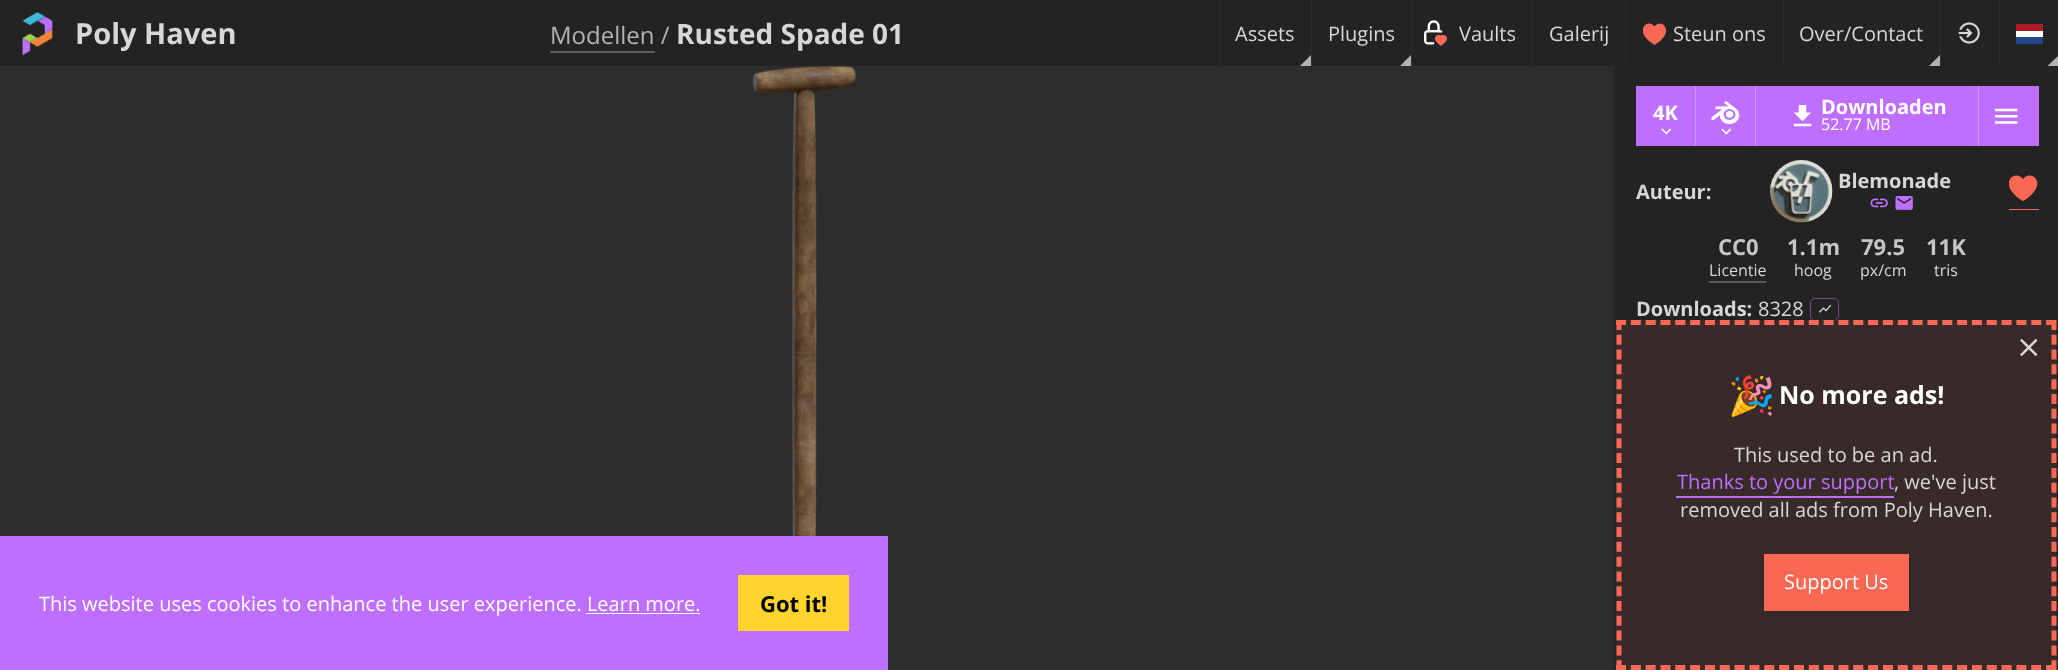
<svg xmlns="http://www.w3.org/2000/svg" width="2058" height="670">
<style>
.a{font:bold 29px Open Sans;fill:#d7d7d7}
.b{font:24px Open Sans;fill:#b3b3b3}
.c{font:bold 28px Open Sans;fill:#d7d7d7}
.d{font:20px Open Sans;fill:#d7d7d7}
.e{font:bold 20px Open Sans;fill:#fff}
.f{font:16px Open Sans;fill:#fff}
.g{font:bold 20px Open Sans;fill:#d7d7d7}
.h{font:bold 22px Open Sans;fill:#c5c5c5}
.i{font:16px Open Sans;fill:#d7d7d7}
.j{font:bold 38px Noto Color Emoji;fill:#fff}
.k{font:bold 25px Open Sans;fill:#fff}
.l{font:20px Open Sans;fill:#be6fff}
.m{font:20px Open Sans;fill:#fff}
.n{font:bold 22px Open Sans;fill:#000}
</style>
<defs>
<clipPath id="clip1"><path d="M1643 21h25v25H1643z"/></clipPath>
</defs>
<rect width="100%" height="100%" fill="#2d2d2d"/>
<path fill="#141414" filter="blur(2px)" d="M1616 66h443v604H1616z"/>
<path fill="#232323" d="M0 0h2058v66H0z"/>
<image href="1.png" x="22" y="11" width="31" height="45"/>
<path fill="#5c5c5c" d="M550 51h105v2H550z"/>
<path fill="#2d2d2d" d="M1219 0h1v66H1219z"/>
<path fill="#b3b3b3" d="M1311 55v11h-11z"/>
<path fill="#2d2d2d" d="M1311 0h1v66H1311z"/>
<path fill="#b3b3b3" d="M1411 55v11h-11z"/>
<path fill="#2d2d2d" d="M1411 0h1v66H1411z"/>
<image href="2.png" x="1424" y="20" width="23" height="26"/>
<path fill="#2d2d2d" d="M1531 0h1v66H1531z"/>
<path fill="#2d2d2d" d="M1625 0h1v66H1625z"/>
<g clip-path="url(#clip1)">
<path fill="#f96854" d="M1654.5 45l-5-3.5c-15-12.5-1-23.5 5-15c5.5-8.5 20 2.5 5 15z"/>
</g>
<path fill="#2d2d2d" d="M1783 0h1v66H1783z"/>
<path fill="#b3b3b3" d="M1940 55v11h-11z"/>
<path fill="#2d2d2d" d="M1940 0h1v66H1940z"/>
<image href="3.png" x="1958" y="22" width="22" height="22"/>
<path fill="#2d2d2d" d="M1999 0h1v66H1999z"/>
<path fill="#ae1c28" d="M2016 24h27v7H2016z"/>
<path fill="#fff" d="M2016 31h27v6H2016z"/>
<path fill="#21468b" d="M2016 37h27v7H2016z"/>
<path fill="#b3b3b3" d="M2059 55v11h-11.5z"/>
<image href="4.png" x="752" y="66" width="105" height="470"/>
<path fill="#232323" d="M1616 66h442v604H1616z"/>
<path fill="#be6fff" d="M1636 86h59v60H1636z"/>
<path fill="#d098ff" d="M1695 86h1v60H1695z"/>
<image href="5.png" x="1661" y="128" width="11" height="7"/>
<path fill="#be6fff" d="M1696 86h59v60H1696z"/>
<path fill="#d098ff" d="M1755 86h1v60H1755z"/>
<image href="6.png" x="1711" y="101" width="29" height="24"/>
<image href="5.png" x="1721" y="128" width="11" height="7"/>
<path fill="#be6fff" d="M1756 86h222v60H1756z"/>
<path fill="#d098ff" d="M1978 86h1v60H1978z"/>
<image href="7.png" x="1793" y="105" width="19" height="22"/>
<path fill="#be6fff" d="M1979 86h60v60H1979z"/>
<image href="8.png" x="1995" y="108" width="23" height="16"/>
<image href="9.png" x="1770" y="160" width="63" height="63"/>
<image href="10.png" x="1870" y="198" width="18" height="10"/>
<image href="11.png" x="1895" y="196" width="18" height="14"/>
<path fill="#f96854" d="M2009 209h30v1H2009z"/>
<image href="12.png" x="2009" y="175" width="29" height="26"/>
<path fill="#595959" d="M1709 281h57v2H1709z"/>
<rect fill="none" stroke="#714991" x="1810.5" y="298.5" width="28" height="22" rx="4.5"/>
<image href="13.png" x="1818" y="304" width="14" height="9"/>
<path fill="#382a28" d="M1616 320h440v350H1616z"/>
<path fill="none" stroke="#f96854" stroke-width="5" stroke-dasharray="10 4.83" d="M1616 322.5h440"/>
<path fill="none" stroke="#f96854" stroke-width="5" stroke-dasharray="10 4.79" d="M2054 320v350"/>
<path fill="none" stroke="#f96854" stroke-width="5" stroke-dasharray="10 4.83" d="M1616 667.5h440"/>
<path fill="none" stroke="#f96854" stroke-width="5" stroke-dasharray="10 4.79" d="M1619 320v350"/>
<image href="14.png" x="2020" y="338" width="18" height="19"/>
<path fill="#be6fff" d="M1676 470v28h218v-28v26h-218z"/>
<path fill="#00000033" filter="blur(5.5px)" d="M1769 559h140v52H1769z"/>
<path fill="#f96854" d="M1764 554h145v57H1764z"/>
<path fill="#be6fff" d="M0 536h888v134H0z"/>
<path fill="#fff" d="M586 613h114v1H586z"/>
<path fill="#ffd42d" d="M738 575h111v56H738z"/>
<text class="a" x="75" y="44">Poly Haven</text>
<text class="b" x="550" y="44">Modellen /</text>
<text class="c" x="676" y="44">Rusted Spade 01</text>
<text class="d" x="1235" y="41">Assets</text>
<text class="d" x="1328" y="41">Plugins</text>
<text class="d" x="1459" y="41">Vaults</text>
<text class="d" x="1549" y="41">Galerij</text>
<text class="d" x="1673" y="41">Steun ons</text>
<text class="d" x="1799" y="41">Over/Contact</text>
<text class="e" x="1653" y="120">4K</text>
<text class="e" x="1821" y="114">Downloaden</text>
<text class="f" x="1821" y="130">52.77 MB</text>
<text class="g" x="1636" y="199">Auteur:</text>
<text class="g" x="1838" y="188">Blemonade</text>
<text class="h" x="1718" y="255">CC0</text>
<text class="i" x="1709" y="276">Licentie</text>
<text class="h" x="1787" y="255">1.1m</text>
<text class="i" x="1794" y="276">hoog</text>
<text class="h" x="1861" y="255">79.5</text>
<text class="i" x="1860" y="276">px/cm</text>
<text class="h" x="1926" y="255">11K</text>
<text class="i" x="1934" y="276">tris</text>
<text class="g" x="1636" y="316">Downloads:</text>
<text class="d" x="1758" y="316">8328</text>
<text class="j" x="1728" y="409">🎉</text>
<text class="k" x="1779" y="404">No more ads!</text>
<text class="d" x="1734" y="462">This used to be an ad.</text>
<text class="l" x="1677" y="489">Thanks to your support</text>
<text class="d" x="1894" y="489">, we've just</text>
<text class="d" x="1680" y="517">removed all ads from Poly Haven.</text>
<text class="m" x="1784" y="589">Support Us</text>
<text class="m" x="39" y="611">This website uses cookies to enhance the user experience. Learn more.</text>
<text class="n" x="760" y="612">Got it!</text>
</svg>
